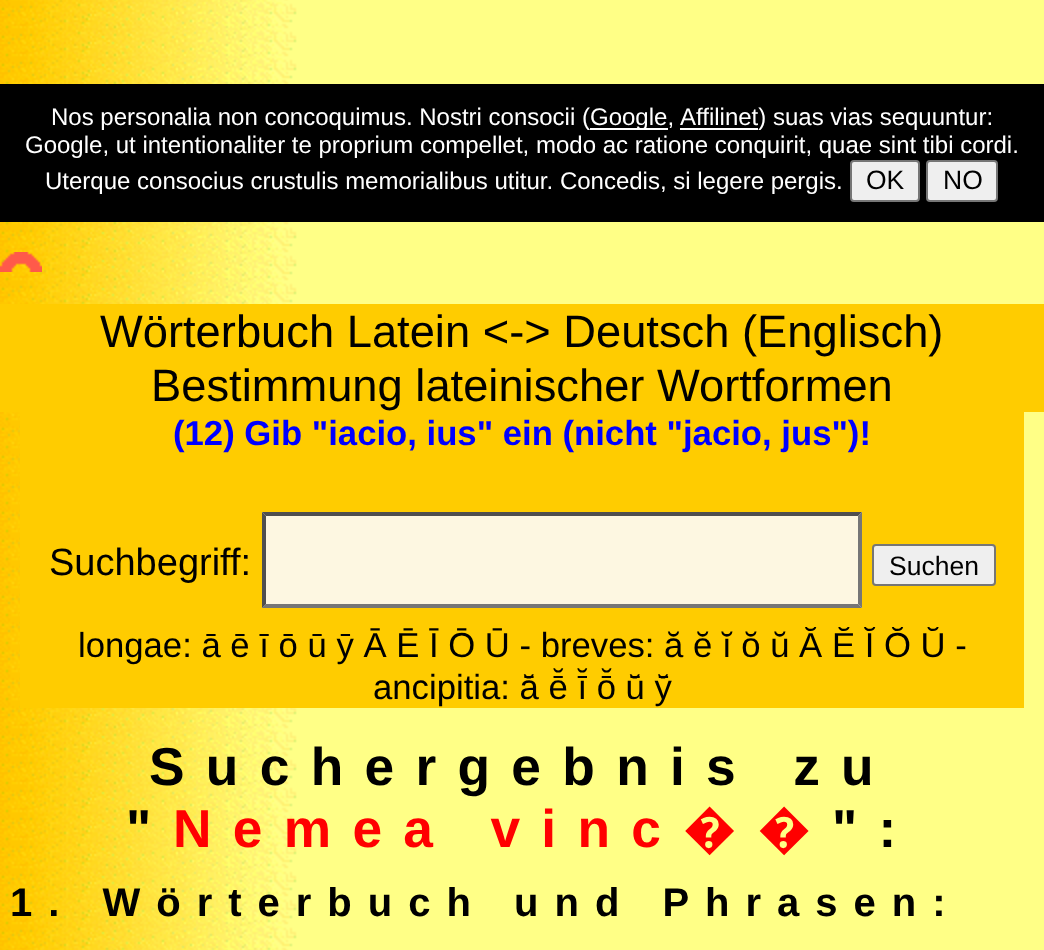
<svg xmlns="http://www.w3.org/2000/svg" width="1044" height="950">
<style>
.a{font:24px Liberation Sans;fill:#fff}
.b{font:26.5px Liberation Sans;fill:#000}
.c{font:45.3px Liberation Sans;fill:#000}
.d{font:bold 34.7px Liberation Sans;fill:#00f}
.e{font:38px Liberation Sans;fill:#000}
.f{font:34.7px Liberation Sans;fill:#000}
.g{font:bold 53.3px Liberation Sans;letter-spacing:21.3px;fill:#000}
.h{font:bold 53.3px Liberation Sans;letter-spacing:21.3px;fill:#f00}
.i{font:bold 53.3px Noto Sans;letter-spacing:21.3px;fill:#f00}
.j{font:bold 40px Liberation Sans;letter-spacing:16px;fill:#000}
</style>
<rect width="100%" height="100%" fill="#fff"/>
<image href="1.png" x="0" y="0" width="1044" height="950"/>
<path fill="#000" d="M0 84h1044v138H0z"/>
<path fill="#fff" d="M590 128h78v2H590z"/>
<path fill="#fff" d="M680 128h78v2H680z"/>
<rect fill="#efefef" stroke="#767676" stroke-width="2" x="851" y="161" width="68" height="40" rx="3"/>
<rect fill="#efefef" stroke="#767676" stroke-width="2" x="927" y="161" width="70" height="40" rx="3"/>
<image href="2.png" x="0" y="252" width="42" height="20"/>
<path fill="#fc0" d="M0 304h1044v108H0z"/>
<path fill="#fc0" d="M20 412h1004v296H20z"/>
<path fill="#fdf7e1" d="M262 512h600v96H262z"/>
<path fill="#4f4f4f" d="M262 512h600l-4 4h-592z"/>
<path fill="#767676" d="M862 512v96l-4-4v-88z"/>
<path fill="#767676" d="M862 608h-600l4-4h592z"/>
<path fill="#4f4f4f" d="M262 608v-96l4 4v88z"/>
<rect fill="#efefef" stroke="#767676" stroke-width="2" x="873" y="545" width="122" height="40" rx="3"/>
<text class="a" x="51" y="125">Nos personalia non concoquimus. Nostri consocii (</text>
<text class="a" x="590" y="125">Google,</text>
<text class="a" x="680" y="125">Affilinet) suas vias sequuntur:</text>
<text class="a" x="25" y="153">Google, ut intentionaliter te proprium compellet, modo ac ratione conquirit, quae sint tibi cordi.</text>
<text class="a" x="45" y="189">Uterque consocius crustulis memorialibus utitur. Concedis, si legere pergis.</text>
<text class="b" x="866" y="189">OK</text>
<text class="b" x="943" y="189">NO</text>
<text class="c" x="100" y="347">Wörterbuch Latein &lt;-&gt; Deutsch (Englisch)</text>
<text class="c" x="151" y="401">Bestimmung lateinischer Wortformen</text>
<text class="d" x="173" y="445">(12) Gib "iacio, ius" ein (nicht "jacio, jus")!</text>
<text class="e" x="49" y="575">Suchbegriff:</text>
<text class="b" x="889" y="575">Suchen</text>
<text class="f" x="78" y="657">longae: ā ē ī ō ū ӯ Ā Ē Ī Ō Ū - breves: ă ĕ ĭ ŏ ŭ Ă Ĕ Ĭ Ŏ Ŭ -</text>
<text class="f" x="373" y="699">ancipitia: ā̆ ē̆ ī̆ ō̆ ū̆ ȳ̆</text>
<text class="g" x="149" y="785">Suchergebnis zu</text>
<text class="g" x="126" y="847">"</text>
<text class="h" x="173" y="847">Nemea vinc</text>
<text class="i" x="683" y="847">��</text>
<text class="g" x="832" y="847">":</text>
<text class="j" x="10" y="916">1. Wörterbuch und Phrasen:</text>
</svg>
